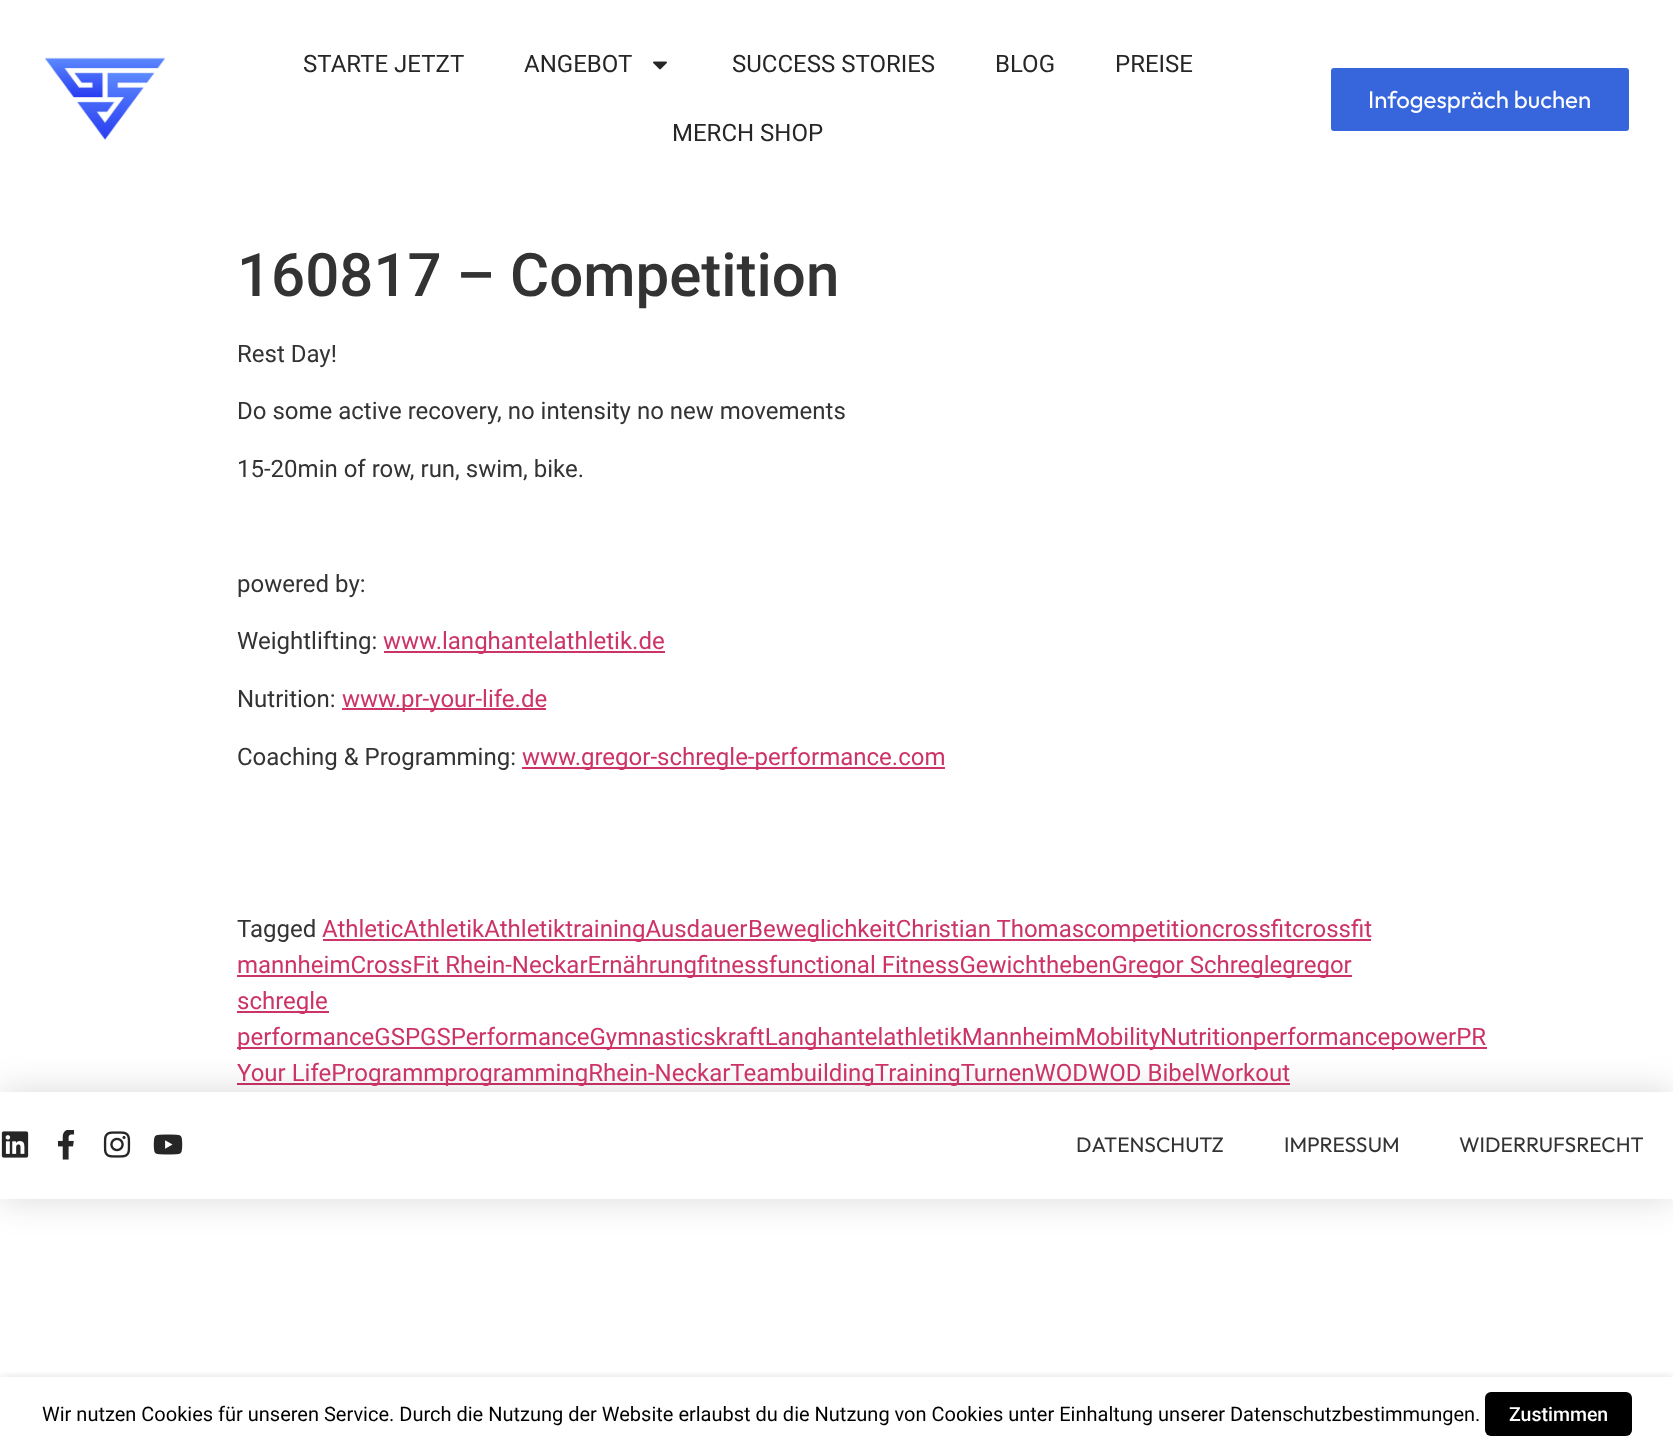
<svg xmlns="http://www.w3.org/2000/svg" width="1673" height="1450">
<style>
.a{font:24px Roboto;fill:#262626}
.b{font:24px Outfit;fill:#fff}
.c{font:500 60px Roboto;fill:#333}
.d{font:24px Roboto;fill:#333}
.e{font:24px Roboto;fill:#c36}
.f{font:21px Outfit;fill:#333}
.g{font:20px Roboto;fill:#000}
.h{font:500 19.5px Roboto;fill:#fff}
</style>
<defs>
<clipPath id="clip1"><path d="M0 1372h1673v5H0z"/></clipPath>
</defs>
<rect width="100%" height="100%" fill="#fff"/>
<image href="1.png" x="45" y="57" width="120" height="83"/>
<image href="2.png" x="653" y="61" width="14" height="9"/>
<rect fill="#3765dc" stroke="#3765dc" stroke-width="2" x="1332" y="69" width="296" height="61" rx="2"/>
<path fill="#c36" d="M384 651h281v2H384z"/>
<path fill="#c36" d="M342 708h204v2H342z"/>
<path fill="#c36" d="M522 767h423v2H522z"/>
<path fill="#c36" d="M323 939h424v2H323z"/>
<path fill="#c36" d="M747 939h624v2H747z"/>
<path fill="#c36" d="M237 975h1115v2H237z"/>
<path fill="#c36" d="M237 1011h92v2H237z"/>
<path fill="#c36" d="M237 1047h1250v2H237z"/>
<path fill="#c36" d="M237 1083h1053v2H237z"/>
<path fill="#00000026" filter="blur(18px)" d="M0 1092h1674v107H0z"/>
<path fill="#fff" d="M0 1092h1673v107H0z"/>
<image href="3.png" x="1" y="1131" width="28" height="27"/>
<image href="4.png" x="57" y="1130" width="18" height="30"/>
<image href="5.png" x="103" y="1131" width="28" height="27"/>
<image href="6.png" x="153" y="1134" width="30" height="21"/>
<g clip-path="url(#clip1)">
<path fill="#00000080" filter="blur(7.5px)" d="M0 1385h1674v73H0z"/>
</g>
<rect fill="#000" x="1485" y="1392" width="147" height="44" rx="6"/>
<text class="a" x="303" y="72">STARTE JETZT</text>
<text class="a" x="524" y="72">ANGEBOT</text>
<text class="a" x="732" y="72">SUCCESS STORIES</text>
<text class="a" x="995" y="72">BLOG</text>
<text class="a" x="1115" y="72">PREISE</text>
<text class="a" x="672" y="141">MERCH SHOP</text>
<text class="b" x="1368" y="108">Infogespräch buchen</text>
<text class="c" x="237" y="296">160817 – Competition</text>
<text class="d" x="237" y="362">Rest Day!</text>
<text class="d" x="237" y="419">Do some active recovery, no intensity no new movements</text>
<text class="d" x="237" y="477">15-20min of row, run, swim, bike.</text>
<text class="d" x="237" y="592">powered by:</text>
<text class="d" x="237" y="649">Weightlifting:</text>
<text class="e" x="383" y="649">www.langhantelathletik.de</text>
<text class="d" x="237" y="707">Nutrition:</text>
<text class="e" x="342" y="707">www.pr-your-life.de</text>
<text class="d" x="237" y="765">Coaching &amp; Programming:</text>
<text class="e" x="522" y="765">www.gregor-schregle-performance.com</text>
<text class="d" x="237" y="937">Tagged</text>
<text class="e" x="322" y="937">AthleticAthletikAthletiktrainingAusdauer</text>
<text class="e" x="748" y="937">BeweglichkeitChristian Thomascompetitioncrossfitcrossfit</text>
<text class="e" x="237" y="973">mannheimCrossFit Rhein-NeckarErnährungfitnessfunctional FitnessGewichthebenGregor Schreglegregor</text>
<text class="e" x="237" y="1009">schregle</text>
<text class="e" x="237" y="1045">performanceGSPGSPerformanceGymnasticskraftLanghantelathletikMannheimMobilityNutritionperformancepowerPR</text>
<text class="e" x="237" y="1081">Your LifeProgrammprogrammingRhein-NeckarTeambuildingTrainingTurnenWODWOD BibelWorkout</text>
<text class="f" x="1076" y="1152">DATENSCHUTZ</text>
<text class="f" x="1284" y="1152">IMPRESSUM</text>
<text class="f" x="1459" y="1152">WIDERRUFSRECHT</text>
<text class="g" x="42" y="1421">Wir nutzen Cookies für unseren Service. Durch die Nutzung der Website erlaubst du die Nutzung von Cookies unter Einhaltung unserer Datenschutzbestimmungen.</text>
<text class="h" x="1509" y="1421">Zustimmen</text>
</svg>
